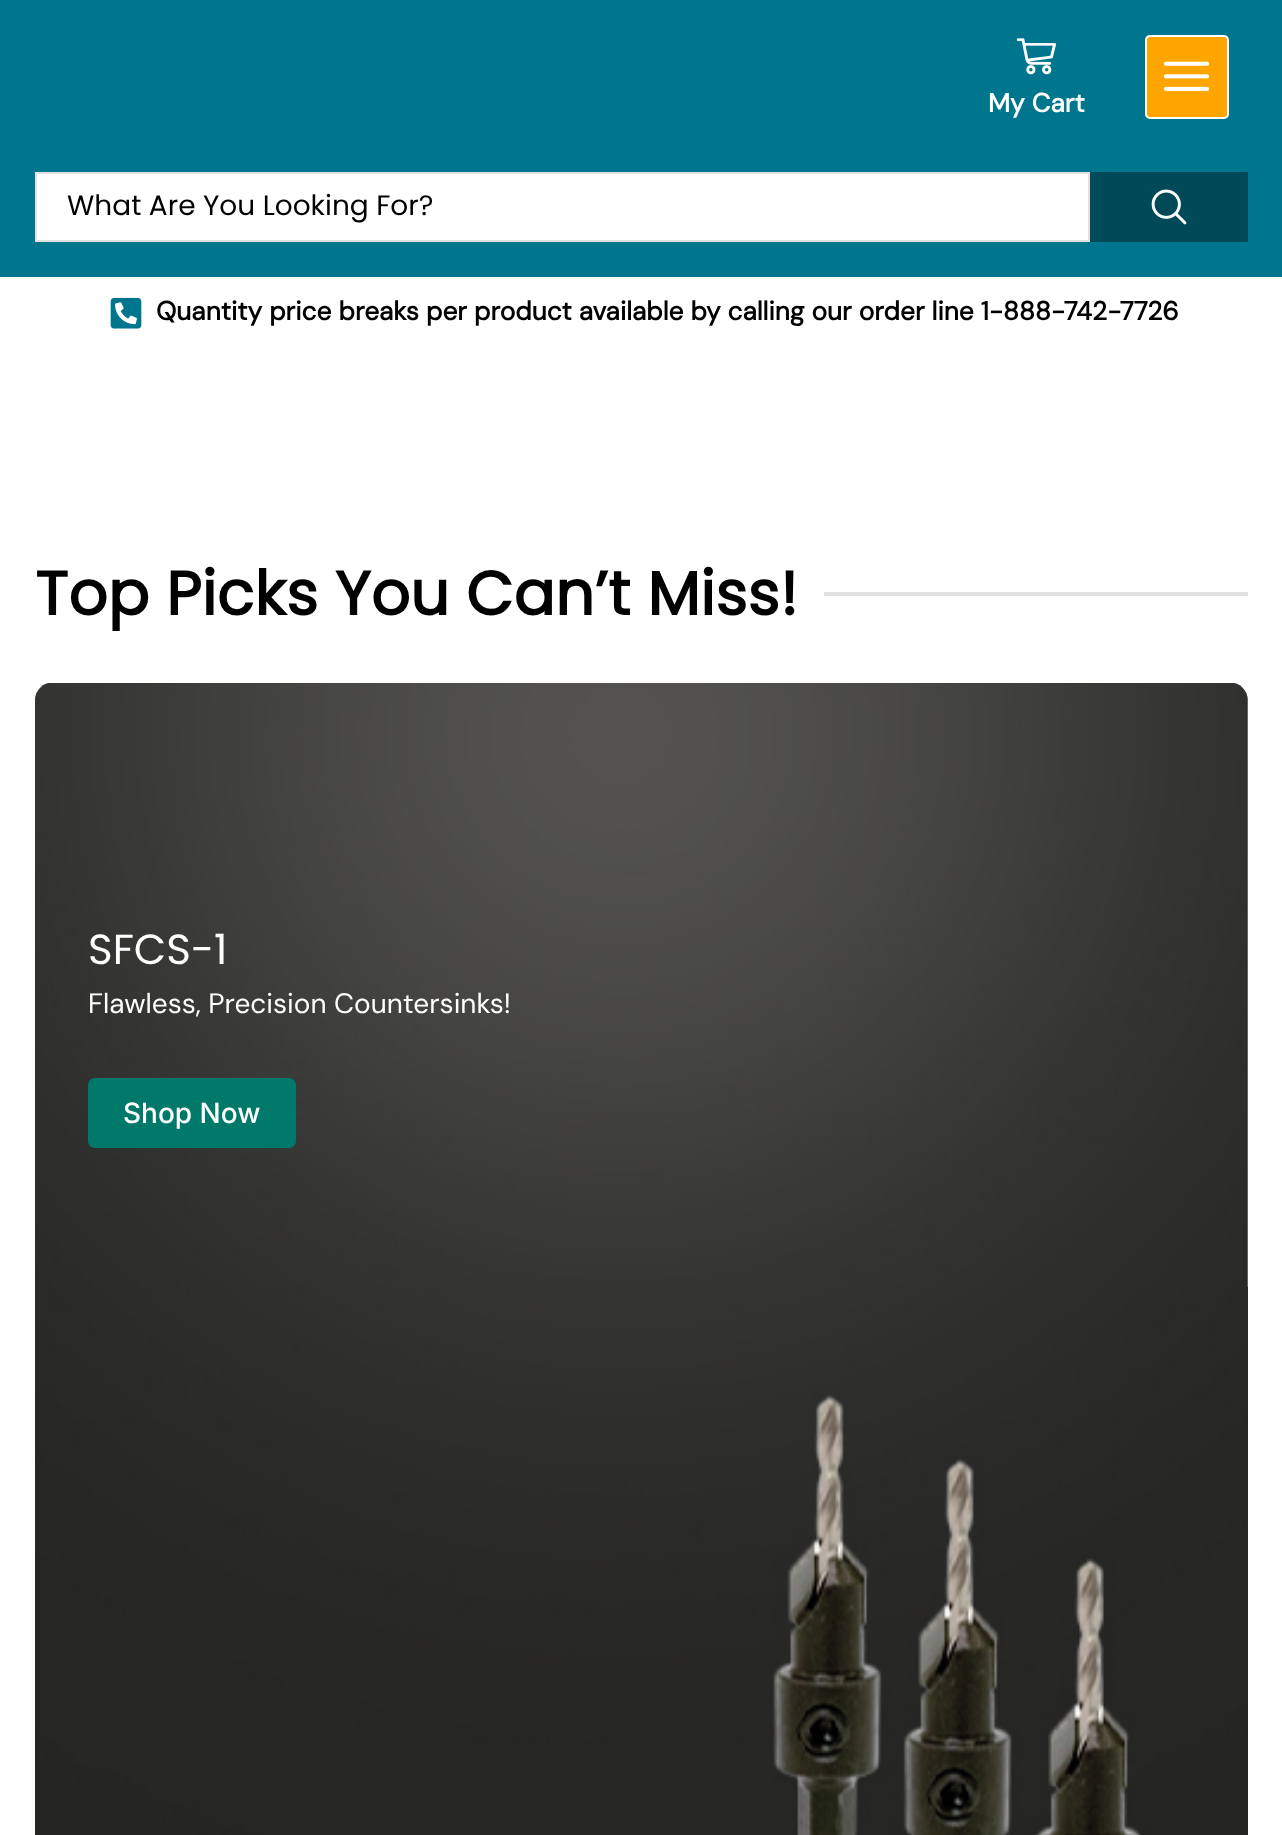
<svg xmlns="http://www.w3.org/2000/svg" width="1282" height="1835">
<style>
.a{font:bold 26.25px DM Sans;fill:#fff}
.b{font:28px Poppins;fill:#000}
.c{font:bold 26.25px DM Sans;fill:#000}
.d{font:bold 61.25px Poppins;letter-spacing:0.2px;fill:#000}
.e{font:42px Poppins;fill:#fff}
.f{font:28px DM Sans;fill:#fff}
.g{font:500 28px Inter;fill:#fff}
</style>
<rect width="100%" height="100%" fill="#fff"/>
<path fill="#00768e" d="M0 0h1282v277H0z"/>
<image href="1.png" x="1016" y="38" width="40" height="37"/>
<rect fill="#ffa500" stroke="#fff" stroke-width="2" x="1146" y="36" width="82" height="82" rx="4"/>
<image href="2.png" x="1163" y="61" width="47" height="30"/>
<path fill="#fff" stroke="#e1e1e1" stroke-width="2" d="M36 173h1053v68H36z"/>
<path fill="#004958" d="M1090 172h158v70H1090z"/>
<image href="3.png" x="1151" y="189" width="36" height="36"/>
<image href="4.png" x="110" y="297" width="32" height="32"/>
<path fill="#e1e1e1" d="M824 592h424v4H824z"/>
<image href="5.png" x="35" y="683" width="1213" height="1152"/>
<rect fill="#00796b" x="88" y="1078" width="208" height="70" rx="7"/>
<text class="a" x="988" y="112">My Cart</text>
<text class="b" x="67" y="215">What Are You Looking For?</text>
<text class="c" x="156" y="320">Quantity price breaks per product available by calling our order line 1-888-742-7726</text>
<text class="d" x="35" y="615">Top Picks You Can’t Miss!</text>
<text class="e" x="88" y="964">SFCS-1</text>
<text class="f" x="88" y="1013">Flawless, Precision Countersinks!</text>
<text class="g" x="123" y="1123">Shop Now</text>
</svg>
